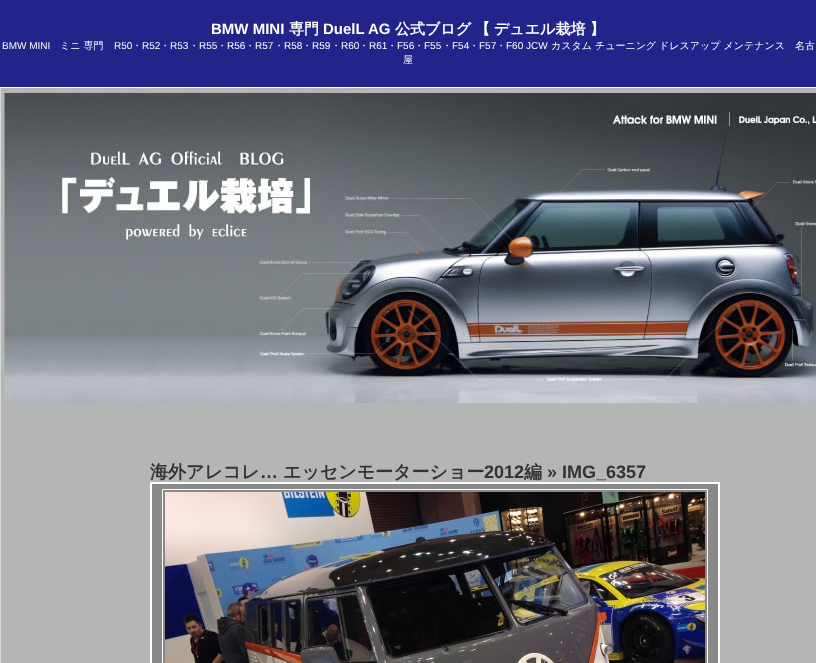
<svg xmlns="http://www.w3.org/2000/svg" width="816" height="663">
<style>
.a{font:bold 15px Liberation Sans;fill:#fff}
.b{font:bold 15px WenQuanYi Zen Hei;fill:#fff}
.c{font:10px Liberation Sans;fill:#fff}
.d{font:500 10px WenQuanYi Zen Hei;fill:#fff}
.e{font:bold 18px WenQuanYi Zen Hei;fill:#333}
.f{font:bold 18px Liberation Sans;fill:#333}
</style>
<rect width="100%" height="100%" fill="#222489"/>
<image href="1.png" x="0" y="403" width="816" height="260"/>
<image href="2.png" x="0" y="87" width="816" height="316"/>
<path fill="#898989" stroke="#fff" stroke-width="2" d="M151 483h568v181H151z"/>
<path fill="none" stroke="#fff" d="M162.5 489.5h545v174H162.5z"/>
<image href="3.png" x="165" y="492" width="540" height="171"/>
<text class="a" x="211" y="34">BMW MINI</text>
<text class="b" x="289" y="34">専門</text>
<text class="a" x="323" y="34">DuelL AG</text>
<text class="b" x="395" y="34">公式ブログ</text>
<text class="b" x="475" y="34">【</text>
<text class="b" x="494" y="34">デュエル栽培</text>
<text class="b" x="590" y="34">】</text>
<text class="c" x="2" y="49">BMW MINI</text>
<text class="d" x="60" y="49">ミニ 専門</text>
<text class="c" x="114" y="49">R50</text>
<text class="d" x="132" y="49">・</text>
<text class="c" x="142" y="49">R52</text>
<text class="d" x="160" y="49">・</text>
<text class="c" x="170" y="49">R53</text>
<text class="d" x="189" y="49">・</text>
<text class="c" x="199" y="49">R55</text>
<text class="d" x="217" y="49">・</text>
<text class="c" x="227" y="49">R56</text>
<text class="d" x="245" y="49">・</text>
<text class="c" x="255" y="49">R57</text>
<text class="d" x="274" y="49">・</text>
<text class="c" x="284" y="49">R58</text>
<text class="d" x="302" y="49">・</text>
<text class="c" x="312" y="49">R59</text>
<text class="d" x="331" y="49">・</text>
<text class="c" x="341" y="49">R60</text>
<text class="d" x="359" y="49">・</text>
<text class="c" x="369" y="49">R61</text>
<text class="d" x="387" y="49">・</text>
<text class="c" x="397" y="49">F56</text>
<text class="d" x="414" y="49">・</text>
<text class="c" x="424" y="49">F55</text>
<text class="d" x="442" y="49">・</text>
<text class="c" x="452" y="49">F54</text>
<text class="d" x="469" y="49">・</text>
<text class="c" x="479" y="49">F57</text>
<text class="d" x="496" y="49">・</text>
<text class="c" x="506" y="49">F60 JCW</text>
<text class="d" x="551" y="49">カスタム チューニング ドレスアップ メンテナンス　名古</text>
<text class="d" x="403" y="63">屋</text>
<text class="e" x="150" y="478">海外アレコレ</text>
<text class="f" x="260" y="478">…</text>
<text class="e" x="283" y="478">エッセンモーターショー</text>
<text class="f" x="484" y="478">2012</text>
<text class="e" x="524" y="478">編</text>
<text class="f" x="547" y="478">» IMG_6357</text>
</svg>
